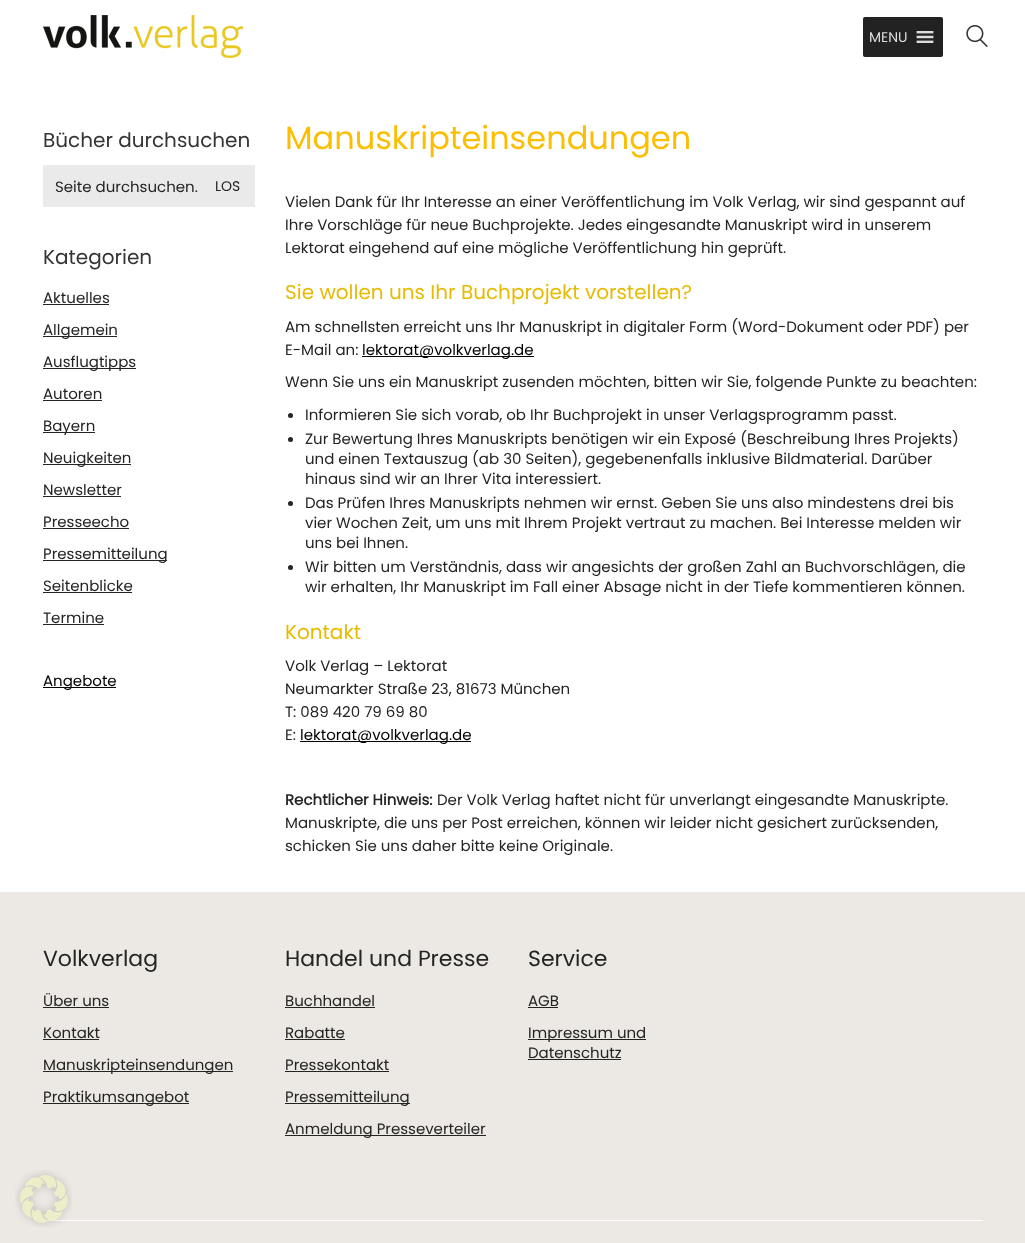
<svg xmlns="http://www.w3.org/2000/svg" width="1025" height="1243">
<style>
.a{font:14px Poppins;fill:#ddd}
.b{font:20px Poppins;fill:#343434}
.c{font:15px Poppins;fill:#242424}
.d{font:14px Poppins;fill:#242424}
.e{font:15px Poppins;fill:#000}
.f{font:32px Poppins;fill:#fcbe00}
.g{font:20px Poppins;fill:#e8ba02}
.h{font:bold 15px Poppins;fill:#242424}
.i{font:22px Poppins;fill:#242424}
</style>
<rect width="100%" height="100%" fill="#fff"/>
<image href="1.png" x="43" y="15" width="200" height="43"/>
<rect fill="#222" x="863" y="17" width="80" height="40" rx="2"/>
<image href="2.png" x="916" y="31" width="18" height="12"/>
<image href="3.png" x="966" y="25" width="22" height="22"/>
<path fill="#eaeaea" d="M43 165h212v42H43z"/>
<path fill="#242424" d="M43 304h66v1H43z"/>
<path fill="#242424" d="M43 336h74v1H43z"/>
<path fill="#242424" d="M43 368h93v1H43z"/>
<path fill="#242424" d="M43 400h59v1H43z"/>
<path fill="#242424" d="M43 432h52v1H43z"/>
<path fill="#242424" d="M43 464h88v1H43z"/>
<path fill="#242424" d="M43 496h78v1H43z"/>
<path fill="#242424" d="M43 528h86v1H43z"/>
<path fill="#242424" d="M43 560h124v1H43z"/>
<path fill="#242424" d="M43 592h89v1H43z"/>
<path fill="#242424" d="M43 624h61v1H43z"/>
<path fill="#000" d="M43 687h73v1H43z"/>
<path fill="#000" d="M362 356h172v1H362z"/>
<circle fill="#242424" cx="290.5" cy="415.5" r="2.5"/>
<circle fill="#242424" cx="290.5" cy="439.5" r="2.5"/>
<circle fill="#242424" cx="290.5" cy="503.5" r="2.5"/>
<circle fill="#242424" cx="290.5" cy="567.5" r="2.5"/>
<path fill="#000" d="M300 741h171v1H300z"/>
<path fill="#ece9e4" d="M0 892h1025v351H0z"/>
<path fill="#242424" d="M43 1007h66v1H43z"/>
<path fill="#242424" d="M43 1039h56v1H43z"/>
<path fill="#242424" d="M43 1071h190v1H43z"/>
<path fill="#242424" d="M43 1103h146v1H43z"/>
<path fill="#242424" d="M285 1007h90v1H285z"/>
<path fill="#242424" d="M285 1039h60v1H285z"/>
<path fill="#242424" d="M285 1071h104v1H285z"/>
<path fill="#242424" d="M285 1103h125v1H285z"/>
<path fill="#242424" d="M285 1135h201v1H285z"/>
<path fill="#242424" d="M528 1007h30v1H528z"/>
<path fill="#242424" d="M528 1039h118v1H528z"/>
<path fill="#242424" d="M528 1059h93v1H528z"/>
<path fill="#fff" d="M43 1220h940v1H43z"/>
<image href="4.png" x="15" y="1170" width="57" height="57"/>
<text class="a" x="869" y="42">MENU</text>
<text class="b" x="43" y="147">Bücher durchsuchen</text>
<text class="c" x="55" y="192">Seite durchsuchen.</text>
<text class="d" x="215" y="191">LOS</text>
<text class="b" x="43" y="264">Kategorien</text>
<text class="c" x="43" y="303">Aktuelles</text>
<text class="c" x="43" y="335">Allgemein</text>
<text class="c" x="43" y="367">Ausflugtipps</text>
<text class="c" x="43" y="399">Autoren</text>
<text class="c" x="43" y="431">Bayern</text>
<text class="c" x="43" y="463">Neuigkeiten</text>
<text class="c" x="43" y="495">Newsletter</text>
<text class="c" x="43" y="527">Presseecho</text>
<text class="c" x="43" y="559">Pressemitteilung</text>
<text class="c" x="43" y="591">Seitenblicke</text>
<text class="c" x="43" y="623">Termine</text>
<text class="e" x="43" y="686">Angebote</text>
<text class="f" x="285" y="149">Manuskripteinsendungen</text>
<text class="c" x="285" y="207">Vielen Dank für Ihr Interesse an einer Veröffentlichung im Volk Verlag, wir sind gespannt auf</text>
<text class="c" x="285" y="230">Ihre Vorschläge für neue Buchprojekte. Jedes eingesandte Manuskript wird in unserem</text>
<text class="c" x="285" y="253">Lektorat eingehend auf eine mögliche Veröffentlichung hin geprüft.</text>
<text class="g" x="285" y="299">Sie wollen uns Ihr Buchprojekt vorstellen?</text>
<text class="c" x="285" y="332">Am schnellsten erreicht uns Ihr Manuskript in digitaler Form (Word-Dokument oder PDF) per</text>
<text class="c" x="285" y="355">E-Mail an:</text>
<text class="e" x="362" y="355">lektorat@volkverlag.de</text>
<text class="c" x="285" y="387">Wenn Sie uns ein Manuskript zusenden möchten, bitten wir Sie, folgende Punkte zu beachten:</text>
<text class="c" x="305" y="420">Informieren Sie sich vorab, ob Ihr Buchprojekt in unser Verlagsprogramm passt.</text>
<text class="c" x="305" y="444">Zur Bewertung Ihres Manuskripts benötigen wir ein Exposé (Beschreibung Ihres Projekts)</text>
<text class="c" x="305" y="464">und einen Textauszug (ab 30 Seiten), gegebenenfalls inklusive Bildmaterial. Darüber</text>
<text class="c" x="305" y="484">hinaus sind wir an Ihrer Vita interessiert.</text>
<text class="c" x="305" y="508">Das Prüfen Ihres Manuskripts nehmen wir ernst. Geben Sie uns also mindestens drei bis</text>
<text class="c" x="305" y="528">vier Wochen Zeit, um uns mit Ihrem Projekt vertraut zu machen. Bei Interesse melden wir</text>
<text class="c" x="305" y="548">uns bei Ihnen.</text>
<text class="c" x="305" y="572">Wir bitten um Verständnis, dass wir angesichts der großen Zahl an Buchvorschlägen, die</text>
<text class="c" x="305" y="592">wir erhalten, Ihr Manuskript im Fall einer Absage nicht in der Tiefe kommentieren können.</text>
<text class="g" x="285" y="639">Kontakt</text>
<text class="c" x="285" y="671">Volk Verlag – Lektorat</text>
<text class="c" x="285" y="694">Neumarkter Straße 23, 81673 München</text>
<text class="c" x="285" y="717">T: 089 420 79 69 80</text>
<text class="c" x="285" y="740">E:</text>
<text class="e" x="300" y="740">lektorat@volkverlag.de</text>
<text class="h" x="285" y="805">Rechtlicher Hinweis:</text>
<text class="c" x="437" y="805">Der Volk Verlag haftet nicht für unverlangt eingesandte Manuskripte.</text>
<text class="c" x="285" y="828">Manuskripte, die uns per Post erreichen, können wir leider nicht gesichert zurücksenden,</text>
<text class="c" x="285" y="851">schicken Sie uns daher bitte keine Originale.</text>
<text class="i" x="43" y="966">Volkverlag</text>
<text class="c" x="43" y="1006">Über uns</text>
<text class="c" x="43" y="1038">Kontakt</text>
<text class="c" x="43" y="1070">Manuskripteinsendungen</text>
<text class="c" x="43" y="1102">Praktikumsangebot</text>
<text class="i" x="285" y="966">Handel und Presse</text>
<text class="c" x="285" y="1006">Buchhandel</text>
<text class="c" x="285" y="1038">Rabatte</text>
<text class="c" x="285" y="1070">Pressekontakt</text>
<text class="c" x="285" y="1102">Pressemitteilung</text>
<text class="c" x="285" y="1134">Anmeldung Presseverteiler</text>
<text class="i" x="528" y="966">Service</text>
<text class="c" x="528" y="1006">AGB</text>
<text class="c" x="528" y="1038">Impressum und</text>
<text class="c" x="528" y="1058">Datenschutz</text>
</svg>
